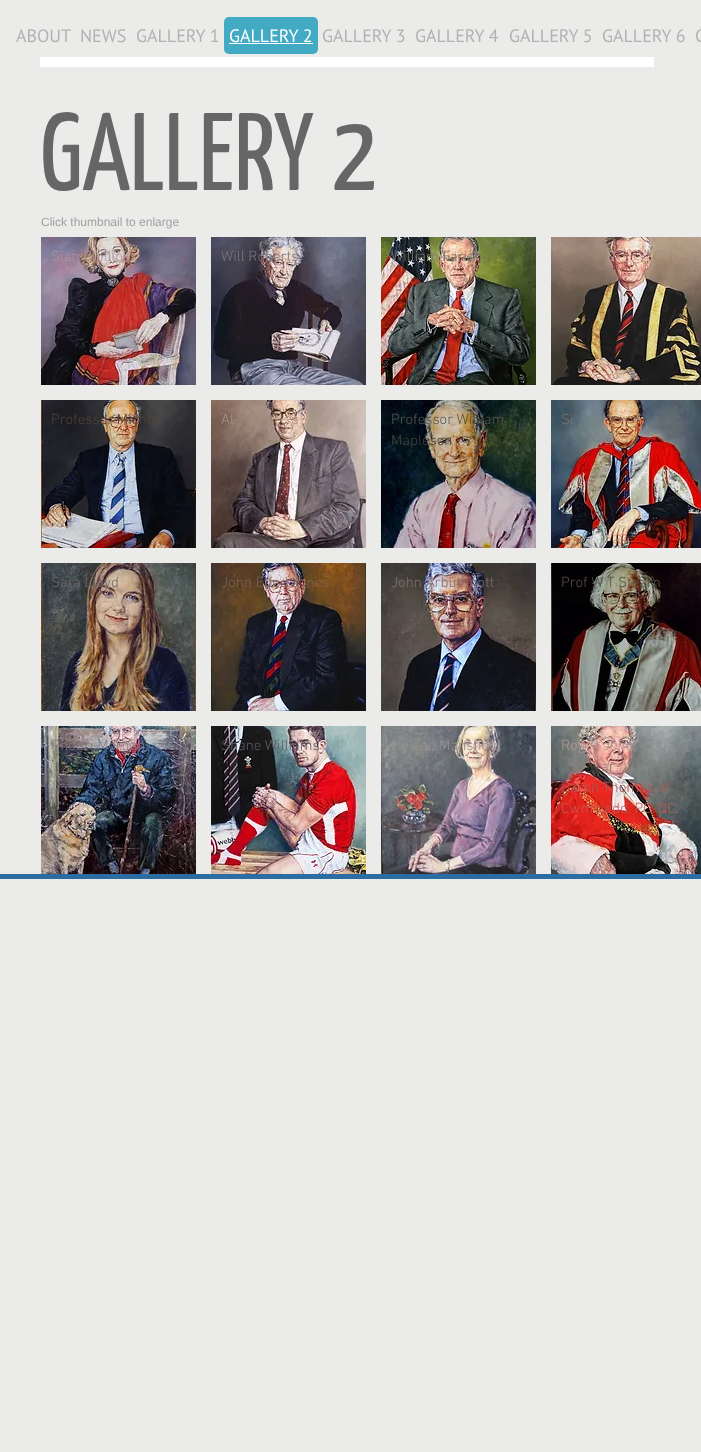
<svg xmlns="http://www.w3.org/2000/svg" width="701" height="1452">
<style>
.a{font:18px PT Sans;fill:#b2b2b2}
.b{font:18px PT Sans;fill:#fff}
.c{font:200 110px Yanone Kaffeesatz;fill:#666}
.d{font:12px Liberation Sans;fill:#a1a1a1}
.e{font:300 15px 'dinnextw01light';fill:#a9959c}
.f{font:300 15px 'dinnextw01light';fill:#7e757c}
.g{font:300 15px 'dinnextw01light';fill:#7e7467}
.h{font:300 15px 'dinnextw01light';fill:#4f433d}
.i{font:300 15px 'dinnextw01light';fill:#aa9082}
.j{font:300 15px 'dinnextw01light';fill:#575549}
.k{font:300 15px 'dinnextw01light';fill:#42423d}
.l{font:300 15px 'dinnextw01light';fill:#717076}
.m{font:300 15px 'dinnextw01light';fill:#6e6662}
.n{font:300 15px 'dinnextw01light';fill:#7e604f}
.o{font:300 15px 'dinnextw01light';fill:#7d6d6d}
.p{font:300 15px 'dinnextw01light';fill:#554f44}
.q{font:300 15px 'dinnextw01light';fill:#877a82}
.r{font:300 15px 'dinnextw01light';fill:#5d5c60}
.s{font:300 15px 'dinnextw01light';fill:#96918f}
.t{font:300 15px 'dinnextw01light';fill:#b19590}
.u{font:300 15px 'dinnextw01light';fill:#897c78}
.v{font:300 15px 'dinnextw01light';fill:#aa5a57}
.w{font:300 15px 'dinnextw01light';fill:#bf5a54}
</style>
<defs>
<clipPath id="clip1"><path d="M561 736h135v77H561z"/></clipPath>
</defs>
<rect width="100%" height="100%" fill="#ebebea"/>
<rect fill="#42abc3" x="224" y="17" width="94" height="37" rx="5"/>
<path fill="#fff" d="M229 43h84v1H229z"/>
<path fill="#fff" d="M40 57h614v10H40z"/>
<image href="1.png" x="41" y="237" width="155" height="148"/>
<image href="2.png" x="211" y="237" width="155" height="148"/>
<image href="3.png" x="381" y="237" width="155" height="148"/>
<image href="4.png" x="551" y="237" width="150" height="148"/>
<image href="5.png" x="41" y="400" width="155" height="148"/>
<image href="6.png" x="211" y="400" width="155" height="148"/>
<image href="7.png" x="381" y="400" width="155" height="148"/>
<image href="8.png" x="551" y="400" width="150" height="148"/>
<image href="9.png" x="41" y="563" width="155" height="148"/>
<image href="10.png" x="211" y="563" width="155" height="148"/>
<image href="11.png" x="381" y="563" width="155" height="148"/>
<image href="12.png" x="551" y="563" width="150" height="148"/>
<image href="13.png" x="41" y="726" width="155" height="148"/>
<image href="14.png" x="211" y="726" width="155" height="148"/>
<image href="15.png" x="381" y="726" width="155" height="148"/>
<image href="16.png" x="551" y="726" width="150" height="148"/>
<path fill="#2b6ca3" d="M0 874h701v5H0z"/>
<text class="a" x="16" y="42">ABOUT</text>
<text class="a" x="80" y="42">NEWS</text>
<text class="a" x="136" y="42">GALLERY 1</text>
<text class="b" x="229" y="42">GALLERY 2</text>
<text class="a" x="322" y="42">GALLERY 3</text>
<text class="a" x="415" y="42">GALLERY 4</text>
<text class="a" x="509" y="42">GALLERY 5</text>
<text class="a" x="602" y="42">GALLERY 6</text>
<text class="a" x="695" y="42">C</text>
<text class="c" x="40" y="190">GALLERY 2</text>
<text class="d" x="41" y="226">Click thumbnail to enlarge</text>
<text class="e" x="51" y="261">Sian Phillips</text>
<text class="f" x="221" y="261">Will Roberts</text>
<text class="g" x="391" y="261">William Farish</text>
<text class="h" x="51" y="424">Professor Micha</text>
<text class="i" x="221" y="424">Al</text>
<text class="i" x="291" y="424">a</text>
<text class="j" x="391" y="424">Professor William</text>
<text class="k" x="391" y="445">Mapleson</text>
<text class="g" x="561" y="424">Si</text>
<text class="l" x="605" y="445">s</text>
<text class="m" x="51" y="587">Sara Lloyd</text>
<text class="n" x="221" y="587">John Elfed Jones</text>
<text class="o" x="391" y="587">John Arbuthnott</text>
<text class="p" x="561" y="587">Prof W T Stearn</text>
<text class="q" x="51" y="750">Rhodri Morgan</text>
<text class="r" x="221" y="750">Shane Williams</text>
<text class="s" x="391" y="750">Helene Mansfield</text>
<text class="t" x="561" y="750">Roger John</text>
<text class="u" x="601" y="771">ar</text>
<text class="u" x="685" y="771">,</text>
<text class="v" x="561" y="792">Baron Thomas of</text>
<g clip-path="url(#clip1)">
<text class="w" x="561" y="813">Cwmgiedd, PC, QC</text>
</g>
</svg>
